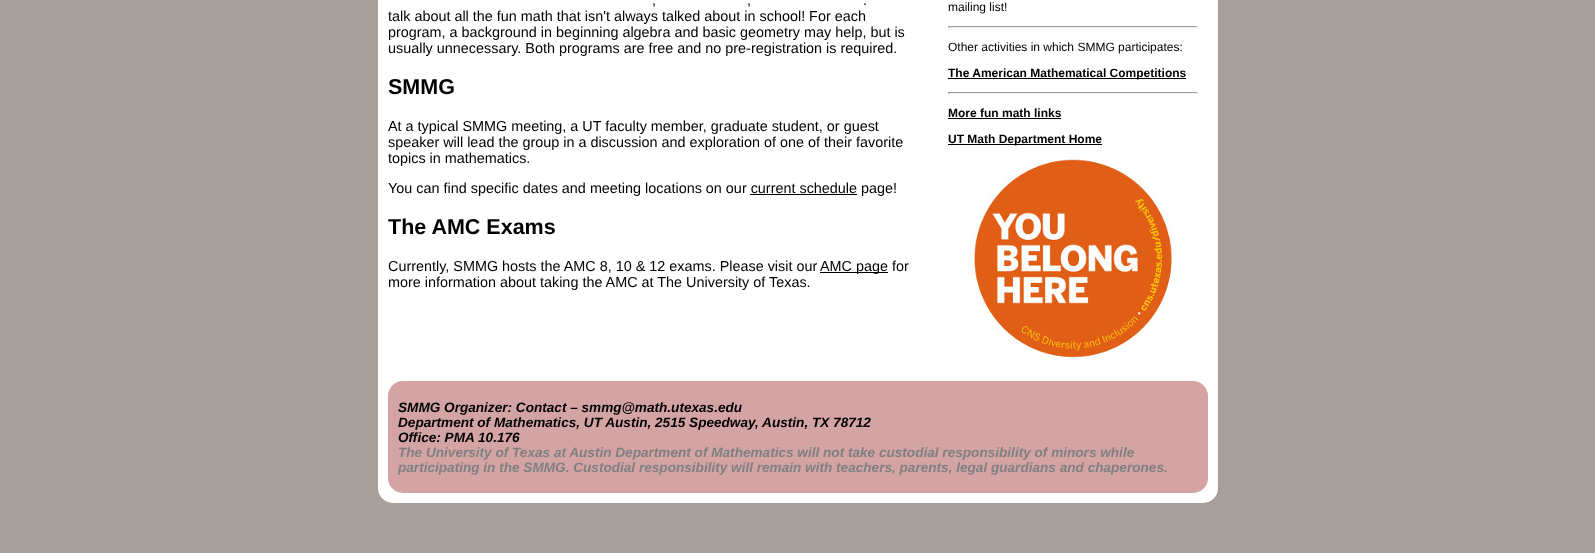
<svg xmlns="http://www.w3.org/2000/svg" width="1595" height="553">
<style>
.a{font:14.4px Liberation Sans;fill:#000}
.b{font:bold 21.5px Liberation Sans;fill:#000}
.c{font:12px Liberation Sans;fill:#000}
.d{font:bold 12px Liberation Sans;fill:#000}
.e{font:italic bold 13.6px Liberation Sans;fill:#000}
.f{font:italic bold 13.6px Liberation Sans;fill:#808080}
</style>
<rect width="100%" height="100%" fill="#a7a09a"/>
<rect fill="#fff" x="378" y="-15" width="840" height="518" rx="15"/>
<path fill="#000" d="M750 194h107v1H750z"/>
<path fill="#000" d="M820 272h68v1H820z"/>
<path fill="#9f9f9f" d="M948 26h250v1H948z"/>
<path fill="#eee" d="M1197 26h1v2H1197z"/>
<path fill="#eee" d="M948 27h250v1H948z"/>
<path fill="#9f9f9f" d="M948 26h1v2H948z"/>
<path fill="#000" d="M948 78h238v1H948z"/>
<path fill="#9f9f9f" d="M948 92h250v1H948z"/>
<path fill="#eee" d="M1197 92h1v2H1197z"/>
<path fill="#eee" d="M948 93h250v1H948z"/>
<path fill="#9f9f9f" d="M948 92h1v2H948z"/>
<path fill="#000" d="M948 118h113v1H948z"/>
<path fill="#000" d="M948 144h154v1H948z"/>
<image href="1.png" x="973" y="158" width="200" height="200"/>
<rect fill="#d4a4a4" x="388" y="381" width="820" height="112" rx="15"/>
<text class="a" x="652" y="5">,</text>
<text class="a" x="747" y="5">,</text>
<text class="a" x="863" y="5">.</text>
<text class="a" x="388" y="21">talk about all the fun math that isn't always talked about in school! For each</text>
<text class="a" x="388" y="37">program, a background in beginning algebra and basic geometry may help, but is</text>
<text class="a" x="388" y="53">usually unnecessary. Both programs are free and no pre-registration is required.</text>
<text class="b" x="388" y="94">SMMG</text>
<text class="a" x="388" y="131">At a typical SMMG meeting, a UT faculty member, graduate student, or guest</text>
<text class="a" x="388" y="147">speaker will lead the group in a discussion and exploration of one of their favorite</text>
<text class="a" x="388" y="163">topics in mathematics.</text>
<text class="a" x="388" y="193">You can find specific dates and meeting locations on our current schedule page!</text>
<text class="b" x="388" y="234">The AMC Exams</text>
<text class="a" x="388" y="271">Currently, SMMG hosts the AMC 8, 10 &amp; 12 exams. Please visit our</text>
<text class="a" x="820" y="271">AMC page for</text>
<text class="a" x="388" y="287">more information about taking the AMC at The University of Texas.</text>
<text class="c" x="948" y="11">mailing list!</text>
<text class="c" x="948" y="51">Other activities in which SMMG participates:</text>
<text class="d" x="948" y="77">The American Mathematical Competitions</text>
<text class="d" x="948" y="117">More fun math links</text>
<text class="d" x="948" y="143">UT Math Department Home</text>
<text class="e" x="398" y="412">SMMG Organizer: Contact – smmg@math.utexas.edu</text>
<text class="e" x="398" y="427">Department of Mathematics, UT Austin, 2515 Speedway, Austin, TX 78712</text>
<text class="e" x="398" y="442">Office: PMA 10.176</text>
<text class="f" x="398" y="457">The University of Texas at Austin Department of Mathematics will not take custodial responsibility of minors while</text>
<text class="f" x="398" y="472">participating in the SMMG. Custodial responsibility will remain with teachers, parents, legal guardians and chaperones.</text>
</svg>
